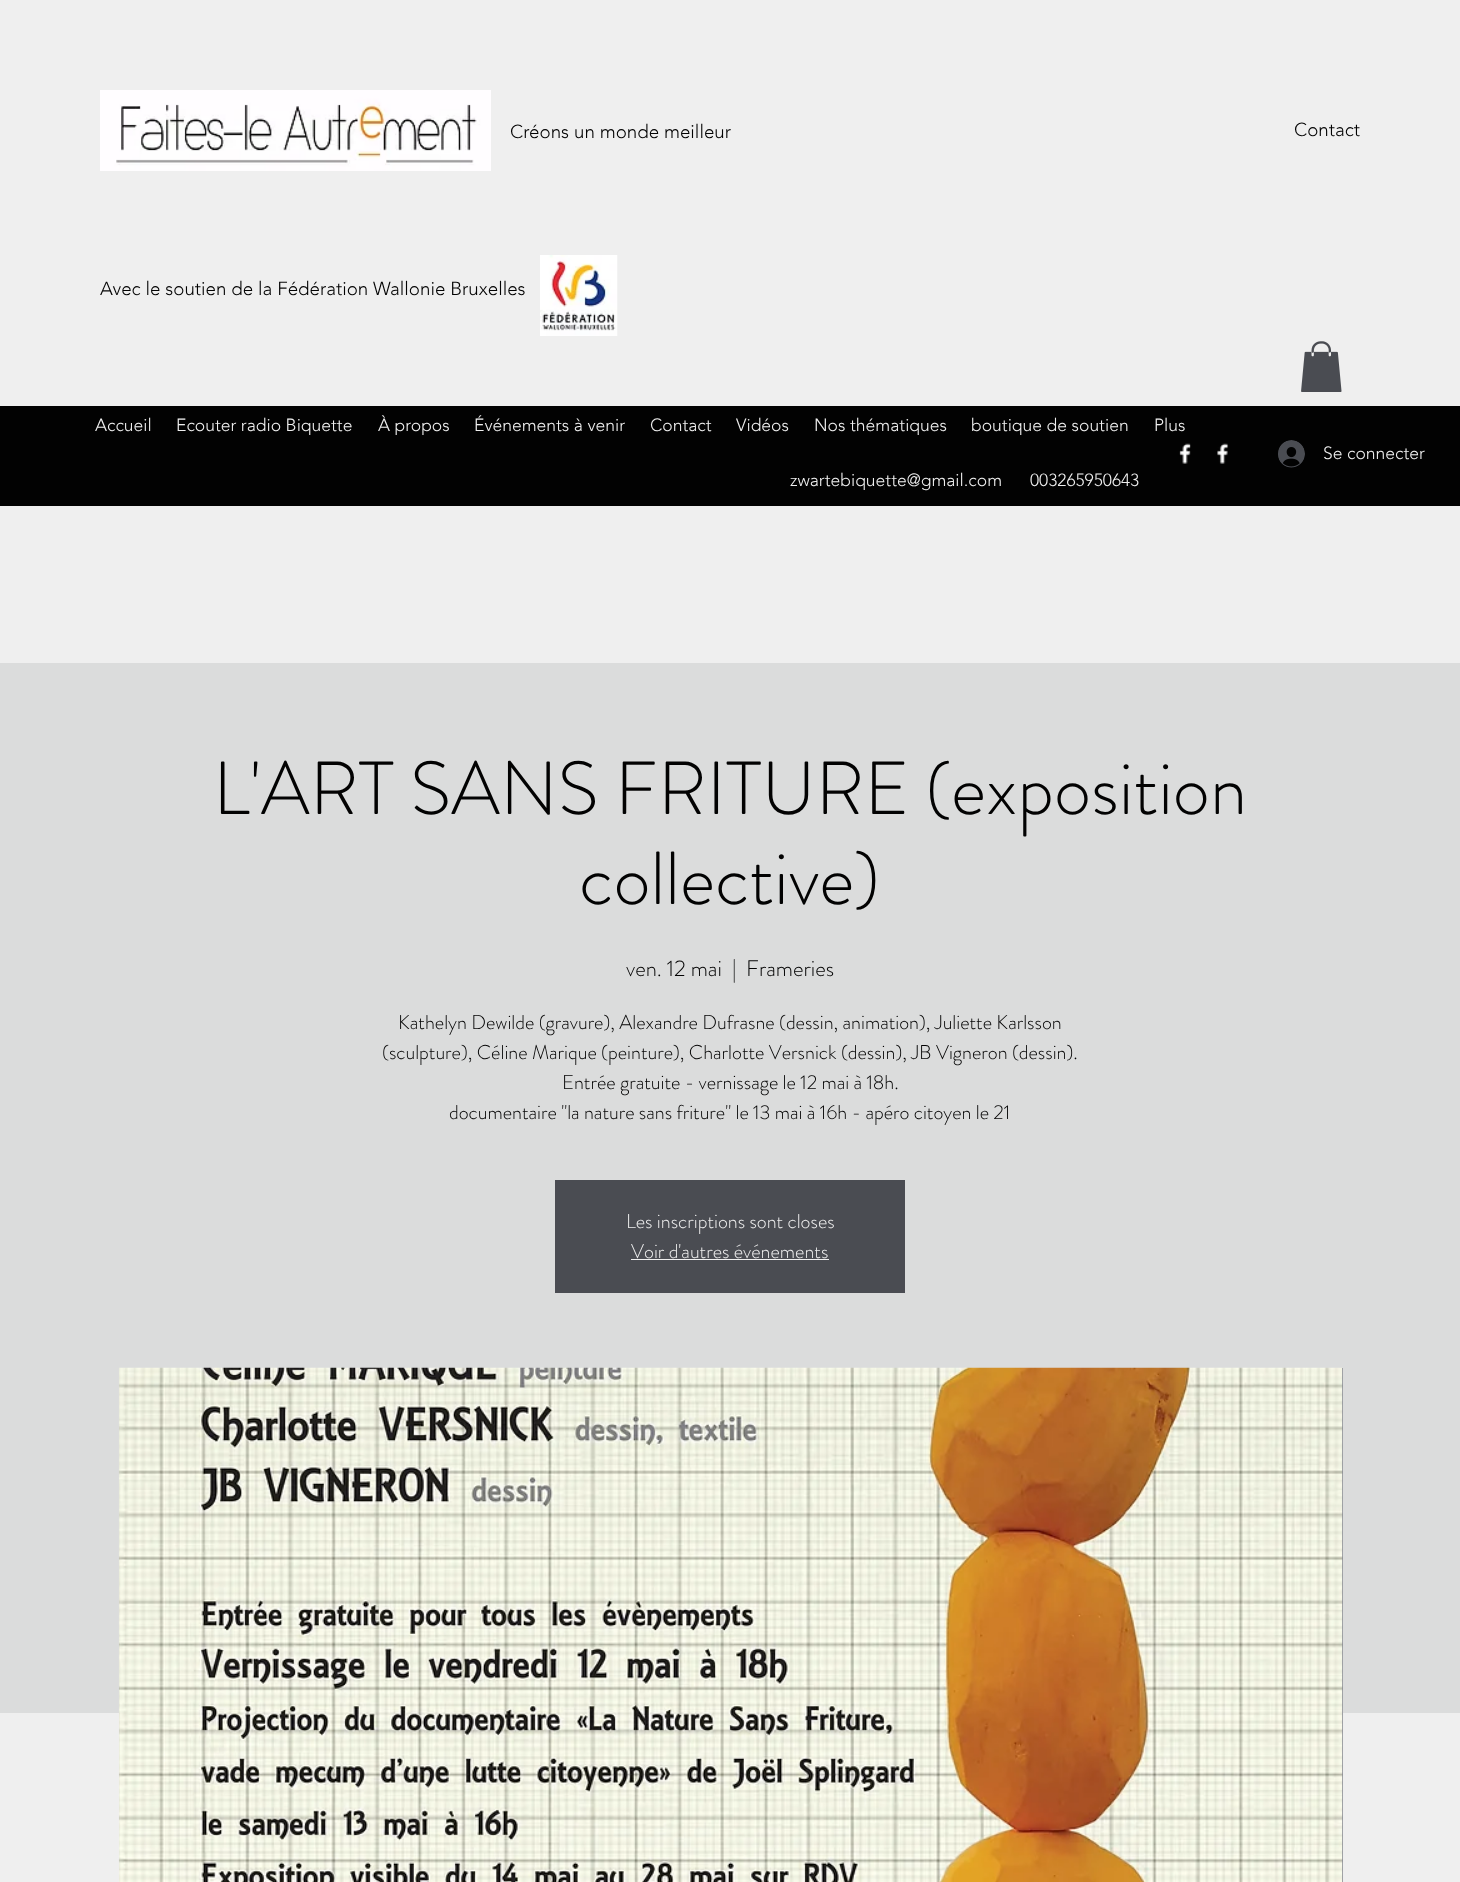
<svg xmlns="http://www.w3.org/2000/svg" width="1460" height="1882">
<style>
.a{font:300 18.75px 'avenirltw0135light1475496';fill:#020202}
.b{font:300 17.5px 'avenirltw0135light1475496';fill:#efefef}
.c{font:300 75px 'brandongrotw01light';fill:#020202}
.d{font:300 22.5px 'brandongrotw01light';fill:#020202}
.e{font:300 20px 'brandongrotw01light';fill:#020202}
.f{font:300 20px 'brandongrotw01light';fill:#efefef}
</style>
<rect width="100%" height="100%" fill="#efefef"/>
<image href="1.png" x="100" y="90" width="391" height="81"/>
<image href="2.png" x="540" y="255" width="78" height="81"/>
<image href="3.png" x="1301" y="341" width="41" height="51"/>
<path fill="#020202" d="M0 406h1460v100H0z"/>
<image href="4.png" x="1179" y="443" width="12" height="21"/>
<image href="5.png" x="1217" y="443" width="12" height="21"/>
<image href="6.png" x="1278" y="440" width="27" height="28"/>
<path fill="#dbdcdc" d="M0 663h1460v1050H0z"/>
<path fill="#4a4c52" d="M555 1180h350v113H555z"/>
<path fill="#efefef" d="M631 1259h198v1H631z"/>
<path fill="#83868f" d="M1342 1368h1v514H1342z"/>
<image href="7.png" x="118" y="1367" width="1225" height="515"/>
<text class="a" x="510" y="138">Créons un monde meilleur</text>
<text class="a" x="100" y="295">Avec le soutien de la Fédération Wallonie Bruxelles</text>
<text class="a" x="1294" y="136">Contact</text>
<text class="b" x="95" y="431">Accueil</text>
<text class="b" x="176" y="431">Ecouter radio Biquette</text>
<text class="b" x="378" y="431">À propos</text>
<text class="b" x="474" y="431">Événements à venir</text>
<text class="b" x="650" y="431">Contact</text>
<text class="b" x="736" y="431">Vidéos</text>
<text class="b" x="814" y="431">Nos thématiques</text>
<text class="b" x="971" y="431">boutique de soutien</text>
<text class="b" x="1154" y="431">Plus</text>
<text class="b" x="1323" y="459">Se connecter</text>
<text class="b" x="790" y="486">zwartebiquette@gmail.com</text>
<text class="b" x="1030" y="486">003265950643</text>
<text class="c" x="213" y="814">L'ART SANS FRITURE (exposition</text>
<text class="c" x="579" y="904">collective)</text>
<text class="d" x="626" y="976">ven. 12 mai</text>
<text class="d" x="732" y="976">|</text>
<text class="d" x="746" y="976">Frameries</text>
<text class="e" x="398" y="1029">Kathelyn Dewilde (gravure), Alexandre Dufrasne (dessin, animation), Juliette Karlsson</text>
<text class="e" x="382" y="1059">(sculpture), Céline Marique (peinture), Charlotte Versnick (dessin), JB Vigneron (dessin).</text>
<text class="e" x="562" y="1089">Entrée gratuite - vernissage le 12 mai à 18h.</text>
<text class="e" x="449" y="1119">documentaire "la nature sans friture" le 13 mai à 16h - apéro citoyen le 21</text>
<text class="f" x="626" y="1228">Les inscriptions sont closes</text>
<text class="f" x="631" y="1258">Voir d'autres événements</text>
</svg>
